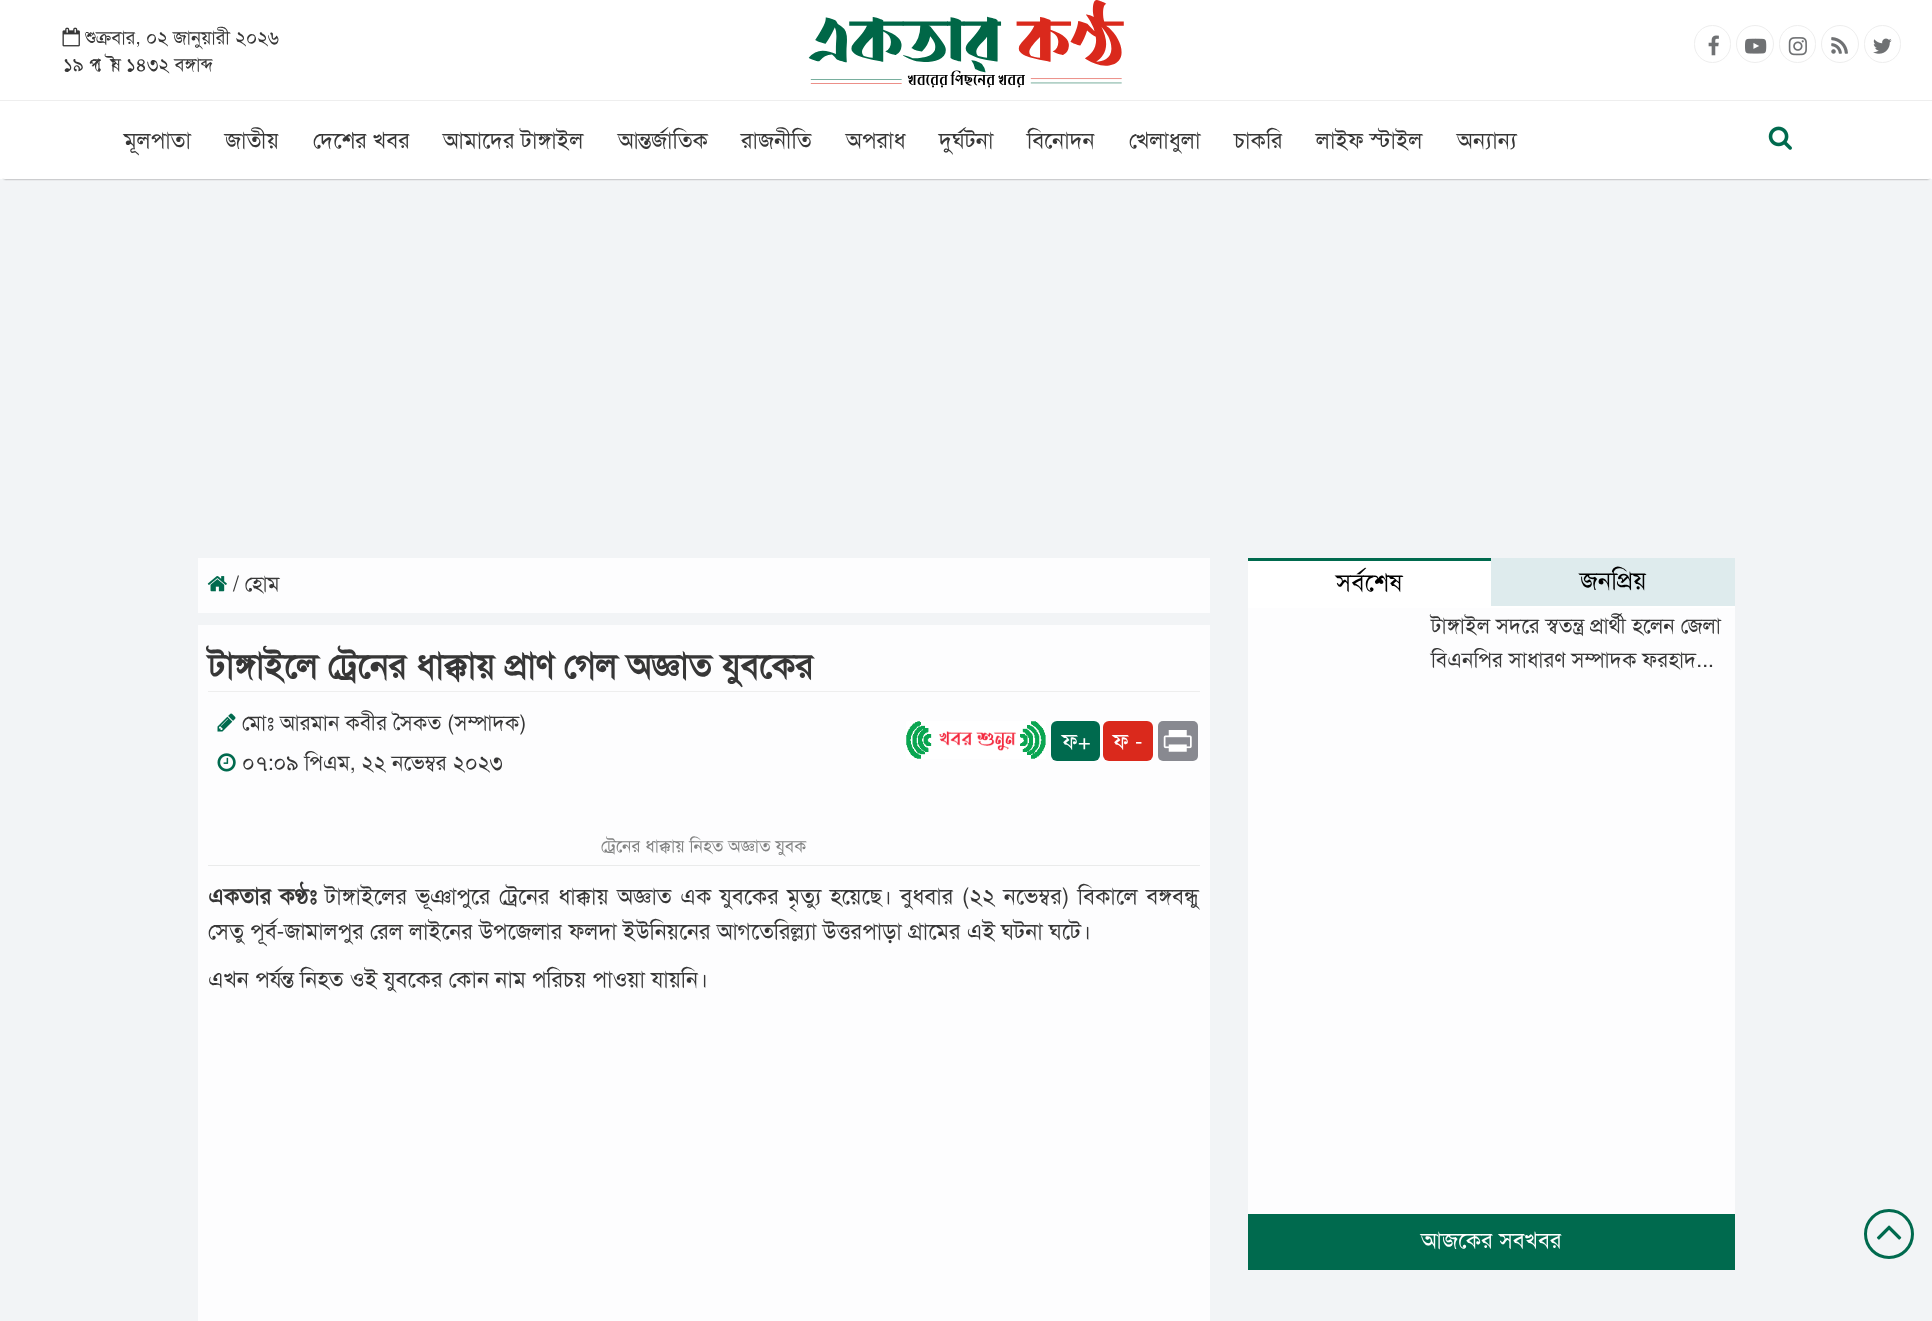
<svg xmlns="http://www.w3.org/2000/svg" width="1932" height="1321">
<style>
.a{font:18.75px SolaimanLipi;fill:#373737}
.b{font:22.5px SolaimanLipi;fill:#373737}
.c{font:21.25px SolaimanLipi;fill:#373737}
.d{font:bold 35px SolaimanLipi;fill:#373737}
.e{font:22.5px SolaimanLipi;fill:#fff}
.f{font:17.5px SolaimanLipi;fill:#828383}
.g{font:bold 22.5px SolaimanLipi;fill:#373737}
.h{font:25px SolaimanLipi;fill:#000}
</style>
<rect width="100%" height="100%" fill="#f2f4f6"/>
<path fill="#fff" d="M0 0h1932v179H0z"/>
<path fill="#eee" d="M0 100h1932v1H0z"/>
<image href="1.png" x="62" y="27" width="18" height="20"/>
<image href="2.png" x="808" y="0" width="316" height="88"/>
<rect fill="none" stroke="#eee" x="1694.5" y="25.5" width="36" height="37" rx="18"/>
<image href="3.png" x="1708" y="35" width="11" height="21"/>
<circle fill="none" stroke="#eee" cx="1755" cy="44" r="18.5"/>
<image href="4.png" x="1745" y="38" width="22" height="16"/>
<rect fill="none" stroke="#eee" x="1779.5" y="25.5" width="36" height="37" rx="18"/>
<image href="5.png" x="1788" y="37" width="19" height="19"/>
<circle fill="none" stroke="#eee" cx="1840" cy="44" r="18.5"/>
<image href="6.png" x="1831" y="37" width="17" height="17"/>
<rect fill="none" stroke="#eee" x="1864.5" y="25.5" width="36" height="37" rx="18"/>
<image href="7.png" x="1873" y="38" width="19" height="16"/>
<rect fill="#808080" filter="blur(1px)" x="4" y="109" width="1925" height="70" rx="1"/>
<rect fill="#fff" stroke="#fff" x="0.5" y="101.5" width="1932" height="77" rx="4.5"/>
<image href="8.png" x="1768" y="126" width="24" height="24"/>
<path fill="#fdfdfe" d="M198 558h1012v55H198z"/>
<image href="9.png" x="207" y="576" width="20" height="16"/>
<path fill="#fdfdfe" d="M198 625h1012v696H198z"/>
<path fill="#eee" d="M208 691h992v1H208z"/>
<image href="10.png" x="217" y="713" width="19" height="19"/>
<image href="11.png" x="217" y="753" width="19" height="19"/>
<image href="12.png" x="906" y="721" width="140" height="38"/>
<rect fill="#006a4e" x="1051" y="721" width="49" height="40" rx="6"/>
<rect fill="#da291c" x="1103" y="721" width="50" height="40" rx="6"/>
<rect fill="#888990" x="1158" y="721" width="40" height="40" rx="5"/>
<image href="13.png" x="1163" y="730" width="29" height="22"/>
<path fill="#eaebeb" d="M208 865h992v1H208z"/>
<path fill="#fff" d="M1491 606h244v2H1491z"/>
<path fill="#fff" d="M1248 561h243v47H1248z"/>
<path fill="#006a4e" d="M1248 558h243v3H1248z"/>
<path fill="#deebed" d="M1491 558h244v48H1491z"/>
<path fill="#fdfdfe" d="M1248 608h487v606H1248z"/>
<path fill="#006a4e" d="M1248 1214h487v56H1248z"/>
<circle fill="none" stroke="#006a4e" stroke-width="3" cx="1889" cy="1234" r="23.5"/>
<image href="14.png" x="1876" y="1225" width="26" height="15"/>
<text class="a" x="85" y="44">শুক্রবার, ০২ জানুয়ারী ২০২৬</text>
<text class="a" x="63" y="71">১৯ পৌষ ১৪৩২ বঙ্গাব্দ</text>
<text class="b" x="124" y="148">মূলপাতা</text>
<text class="b" x="225" y="148">জাতীয়</text>
<text class="b" x="313" y="148">দেশের খবর</text>
<text class="b" x="443" y="148">আমাদের টাঙ্গাইল</text>
<text class="b" x="618" y="148">আন্তর্জাতিক</text>
<text class="b" x="741" y="148">রাজনীতি</text>
<text class="b" x="846" y="148">অপরাধ</text>
<text class="b" x="939" y="148">দুর্ঘটনা</text>
<text class="b" x="1027" y="148">বিনোদন</text>
<text class="b" x="1129" y="148">খেলাধুলা</text>
<text class="b" x="1234" y="148">চাকরি</text>
<text class="b" x="1316" y="148">লাইফ স্টাইল</text>
<text class="b" x="1457" y="148">অন্যান্য</text>
<text class="c" x="233" y="591">/ হোম</text>
<text class="d" x="208" y="678">টাঙ্গাইলে ট্রেনের ধাক্কায় প্রাণ গেল অজ্ঞাত যুবকের</text>
<text class="c" x="242" y="730">মোঃ আরমান কবীর সৈকত (সম্পাদক)</text>
<text class="c" x="242" y="770">০৭:০৯ পিএম, ২২ নভেম্বর ২০২৩</text>
<text class="e" x="1062" y="749">ফ+</text>
<text class="e" x="1113" y="749">ফ -</text>
<text class="f" x="601" y="852">ট্রেনের ধাক্কায় নিহত অজ্ঞাত যুবক</text>
<text class="g" x="208" y="904" word-spacing="2">একতার কণ্ঠঃ</text>
<text class="b" x="325" y="904" word-spacing="2.25">টাঙ্গাইলের ভূঞাপুরে ট্রেনের ধাক্কায় অজ্ঞাত এক যুবকের মৃত্যু হয়েছে। বুধবার (২২ নভেম্বর) বিকালে বঙ্গবন্ধু</text>
<text class="b" x="208" y="939">সেতু পূর্ব-জামালপুর রেল লাইনের উপজেলার ফলদা ইউনিয়নের আগতেরিল্ল্যা উত্তরপাড়া গ্রামের এই ঘটনা ঘটে।</text>
<text class="b" x="208" y="987">এখন পর্যন্ত নিহত ওই যুবকের কোন নাম পরিচয় পাওয়া যায়নি।</text>
<text class="h" x="1336" y="591">সর্বশেষ</text>
<text class="h" x="1580" y="589">জনপ্রিয়</text>
<text class="c" x="1431" y="633">টাঙ্গাইল সদরে স্বতন্ত্র প্রার্থী হলেন জেলা</text>
<text class="c" x="1431" y="667">বিএনপির সাধারণ সম্পাদক ফরহাদ...</text>
<text class="e" x="1421" y="1248">আজকের সবখবর</text>
</svg>
